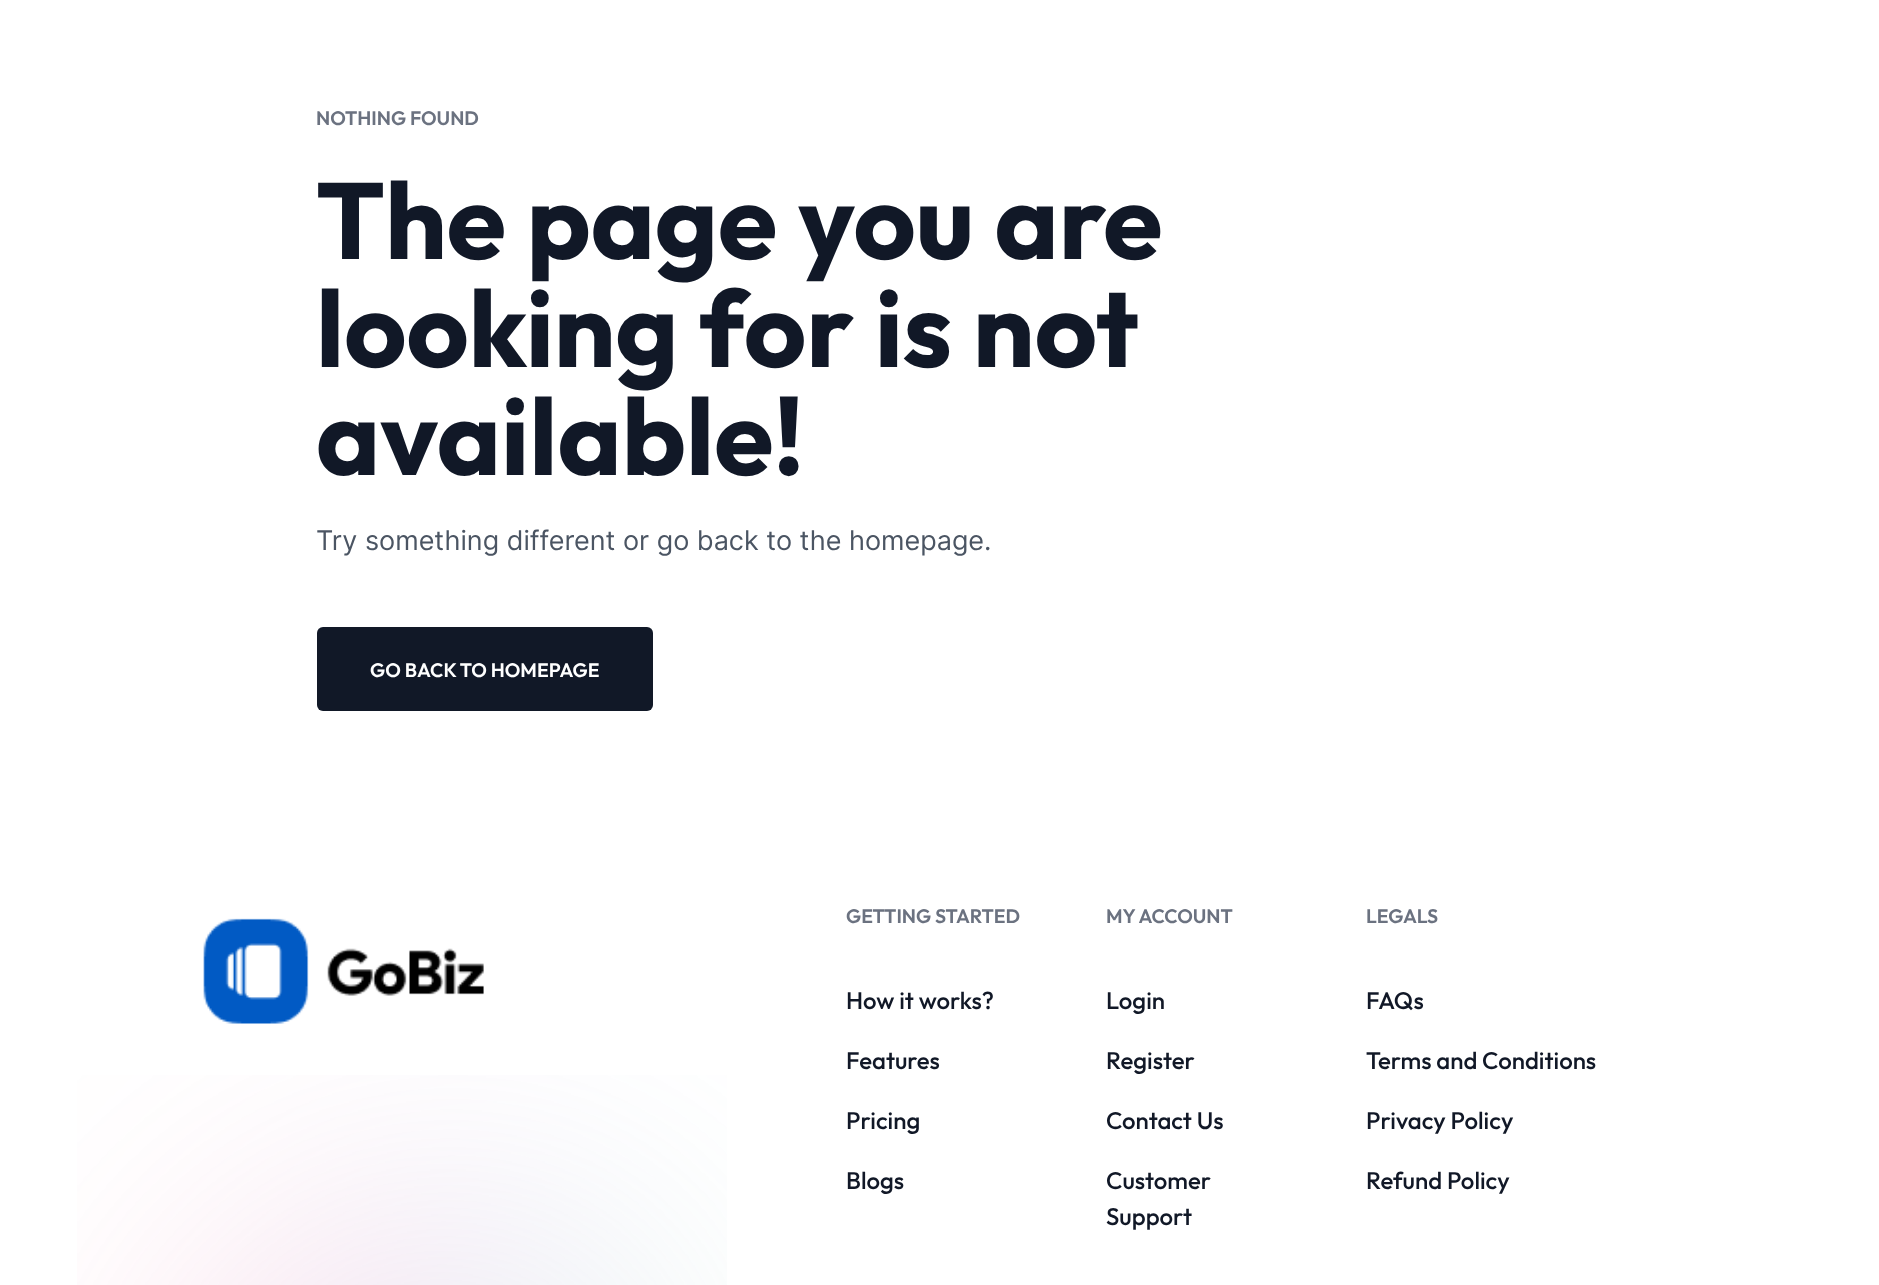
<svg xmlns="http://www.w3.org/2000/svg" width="1879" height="1285">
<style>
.a{font:600 19.5px Outfit;fill:#6b7280}
.b{font:bold 108px Outfit;fill:#111827}
.c{font:27px Inter;fill:#4b5563}
.d{font:600 19.5px Outfit;fill:#fff}
.e{font:500 24px Outfit;fill:#111827}
</style>
<rect width="100%" height="100%" fill="#fff"/>
<rect fill="#111827" x="317" y="627" width="336" height="84" rx="6"/>
<image href="1.png" x="77" y="1075" width="650" height="210"/>
<image href="2.png" x="203" y="918" width="281" height="106"/>
<text class="a" x="316" y="125">NOTHING FOUND</text>
<text class="b" x="316" y="259">The page you are</text>
<text class="b" x="316" y="367">looking for is not</text>
<text class="b" x="316" y="475">available!</text>
<text class="c" x="316" y="550">Try something different or go back to the homepage.</text>
<text class="d" x="370" y="677">GO BACK TO HOMEPAGE</text>
<text class="a" x="846" y="923">GETTING STARTED</text>
<text class="e" x="846" y="1009">How it works?</text>
<text class="e" x="846" y="1069">Features</text>
<text class="e" x="846" y="1129">Pricing</text>
<text class="e" x="846" y="1189">Blogs</text>
<text class="a" x="1106" y="923">MY ACCOUNT</text>
<text class="e" x="1106" y="1009">Login</text>
<text class="e" x="1106" y="1069">Register</text>
<text class="e" x="1106" y="1129">Contact Us</text>
<text class="e" x="1106" y="1189">Customer</text>
<text class="e" x="1106" y="1225">Support</text>
<text class="a" x="1366" y="923">LEGALS</text>
<text class="e" x="1366" y="1009">FAQs</text>
<text class="e" x="1366" y="1069">Terms and Conditions</text>
<text class="e" x="1366" y="1129">Privacy Policy</text>
<text class="e" x="1366" y="1189">Refund Policy</text>
</svg>
